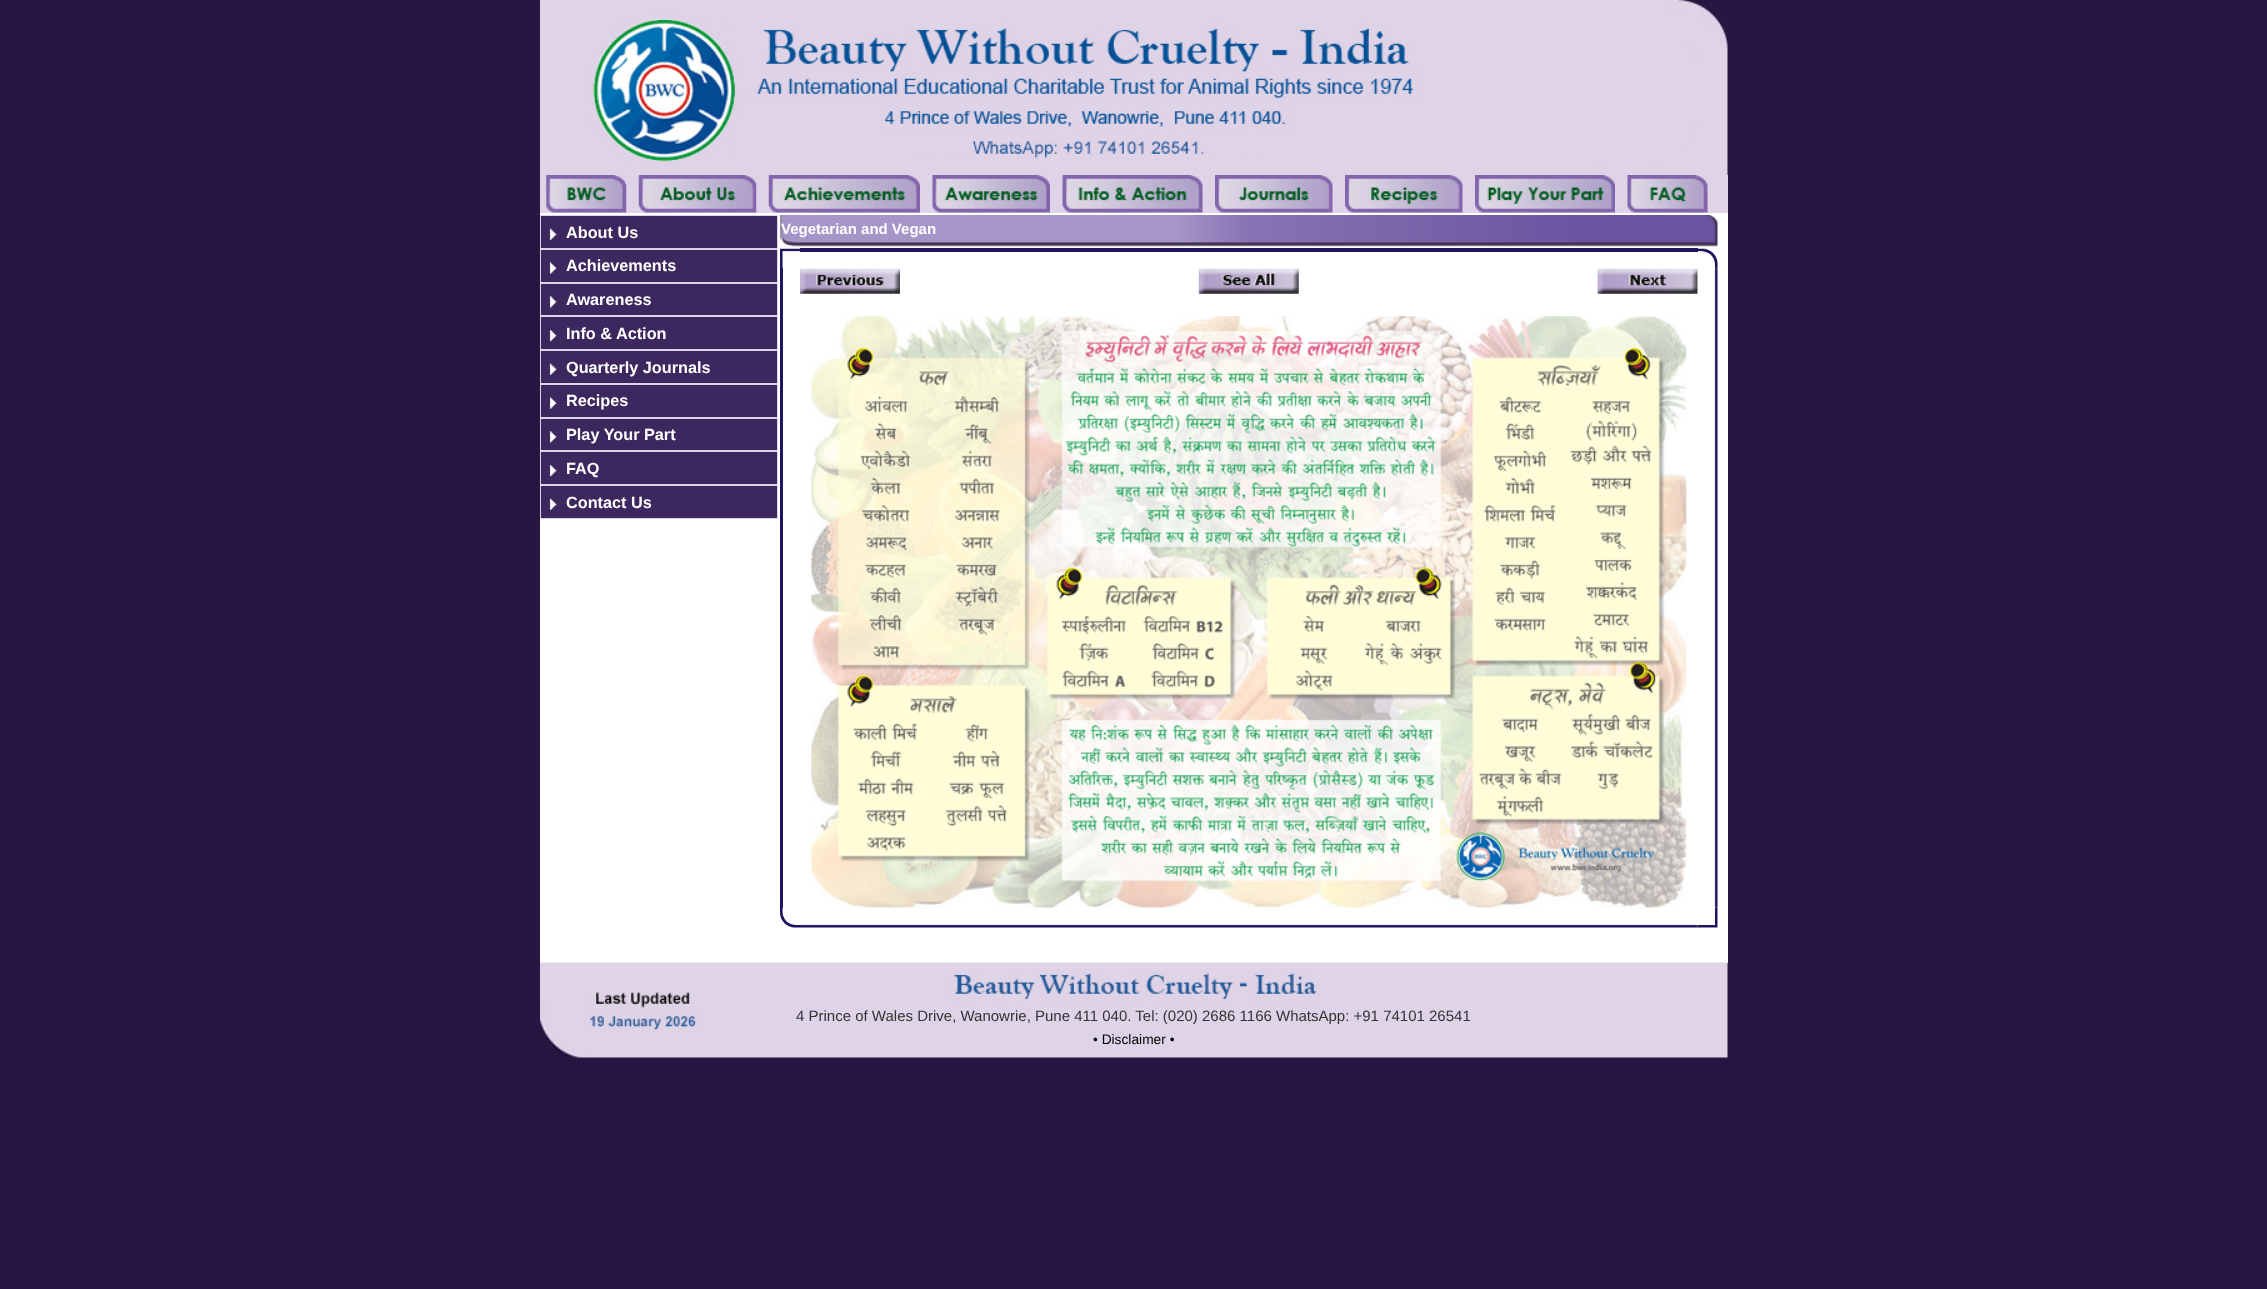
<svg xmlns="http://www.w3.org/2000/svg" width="2267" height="1289">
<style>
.a{font:bold 16.25px Liberation Sans;fill:#fff}
.b{font:bold 15px Liberation Sans;fill:#fff}
.c{font:15px Liberation Sans;fill:#333}
.d{font:13.75px Liberation Sans;fill:#000}
</style>
<rect width="100%" height="100%" fill="#271641"/>
<image href="1.png" x="540" y="0" width="1188" height="175"/>
<path fill="#dfd3e7" d="M540 175h1188v38H540z"/>
<image href="2.png" x="546" y="175" width="81" height="38"/>
<image href="3.png" x="638" y="175" width="119" height="38"/>
<image href="4.png" x="768" y="175" width="152" height="38"/>
<image href="5.png" x="932" y="175" width="118" height="38"/>
<image href="6.png" x="1062" y="175" width="141" height="38"/>
<image href="7.png" x="1215" y="175" width="118" height="38"/>
<image href="8.png" x="1345" y="175" width="118" height="38"/>
<image href="9.png" x="1475" y="175" width="140" height="38"/>
<image href="10.png" x="1627" y="175" width="81" height="38"/>
<path fill="#fff" d="M540 213h1188v750H540z"/>
<path fill="#3d275f" d="M541 216h236v32H541z"/>
<image href="11.png" x="549" y="228" width="8" height="12"/>
<path fill="none" stroke="#dfd3e7" d="M540.5 215.5h237v33H540.5z"/>
<path fill="#3d275f" d="M541 250h236v32H541z"/>
<image href="12.png" x="549" y="262" width="8" height="12"/>
<path fill="none" stroke="#dfd3e7" d="M540.5 249.5h237v33H540.5z"/>
<path fill="#3d275f" d="M541 284h236v31H541z"/>
<image href="13.png" x="549" y="296" width="8" height="12"/>
<path fill="none" stroke="#dfd3e7" d="M540.5 283.5h237v32H540.5z"/>
<path fill="#3d275f" d="M541 317h236v32H541z"/>
<image href="14.png" x="549" y="330" width="8" height="12"/>
<path fill="none" stroke="#dfd3e7" d="M540.5 316.5h237v33H540.5z"/>
<path fill="#3d275f" d="M541 351h236v32H541z"/>
<image href="11.png" x="549" y="363" width="8" height="12"/>
<path fill="none" stroke="#dfd3e7" d="M540.5 350.5h237v33H540.5z"/>
<path fill="#3d275f" d="M541 385h236v32H541z"/>
<image href="12.png" x="549" y="397" width="8" height="12"/>
<path fill="none" stroke="#dfd3e7" d="M540.5 384.5h237v33H540.5z"/>
<path fill="#3d275f" d="M541 419h236v31H541z"/>
<image href="13.png" x="549" y="431" width="8" height="12"/>
<path fill="none" stroke="#dfd3e7" d="M540.5 418.5h237v32H540.5z"/>
<path fill="#3d275f" d="M541 452h236v32H541z"/>
<image href="14.png" x="549" y="465" width="8" height="12"/>
<path fill="none" stroke="#dfd3e7" d="M540.5 451.5h237v33H540.5z"/>
<path fill="#3d275f" d="M541 486h236v32H541z"/>
<image href="11.png" x="549" y="498" width="8" height="12"/>
<path fill="none" stroke="#dfd3e7" d="M540.5 485.5h237v33H540.5z"/>
<image href="15.png" x="780" y="215" width="938" height="32"/>
<image href="16.png" x="780" y="248" width="20" height="20"/>
<path fill="#1f145f" d="M800 248h898v4H800z"/>
<image href="22.png" x="1714" y="268" width="4" height="640"/>
<image href="17.png" x="1698" y="248" width="20" height="21"/>
<path fill="#1f145f" d="M780 268h3v640H780z"/>
<image href="18.png" x="800" y="268" width="100" height="26"/>
<image href="19.png" x="1198" y="268" width="101" height="26"/>
<image href="20.png" x="1597" y="268" width="101" height="26"/>
<image href="21.png" x="811" y="316" width="876" height="592"/>
<image href="23.png" x="780" y="908" width="20" height="20"/>
<image href="24.png" x="800" y="924" width="898" height="4"/>
<image href="25.png" x="1697" y="907" width="21" height="21"/>
<image href="26.png" x="540" y="962" width="1188" height="96"/>
<text class="a" x="566" y="238">About Us</text>
<text class="a" x="566" y="271">Achievements</text>
<text class="a" x="566" y="305">Awareness</text>
<text class="a" x="566" y="339">Info &amp; Action</text>
<text class="a" x="566" y="373">Quarterly Journals</text>
<text class="a" x="566" y="406">Recipes</text>
<text class="a" x="566" y="440">Play Your Part</text>
<text class="a" x="566" y="474">FAQ</text>
<text class="a" x="566" y="508">Contact Us</text>
<text class="b" x="781" y="234">Vegetarian and Vegan</text>
<text class="c" x="796" y="1021">4 Prince of Wales Drive, Wanowrie, Pune 411 040. Tel: (020) 2686 1166 WhatsApp: +91 74101 26541</text>
<text class="d" x="1093" y="1044">• Disclaimer •</text>
</svg>
